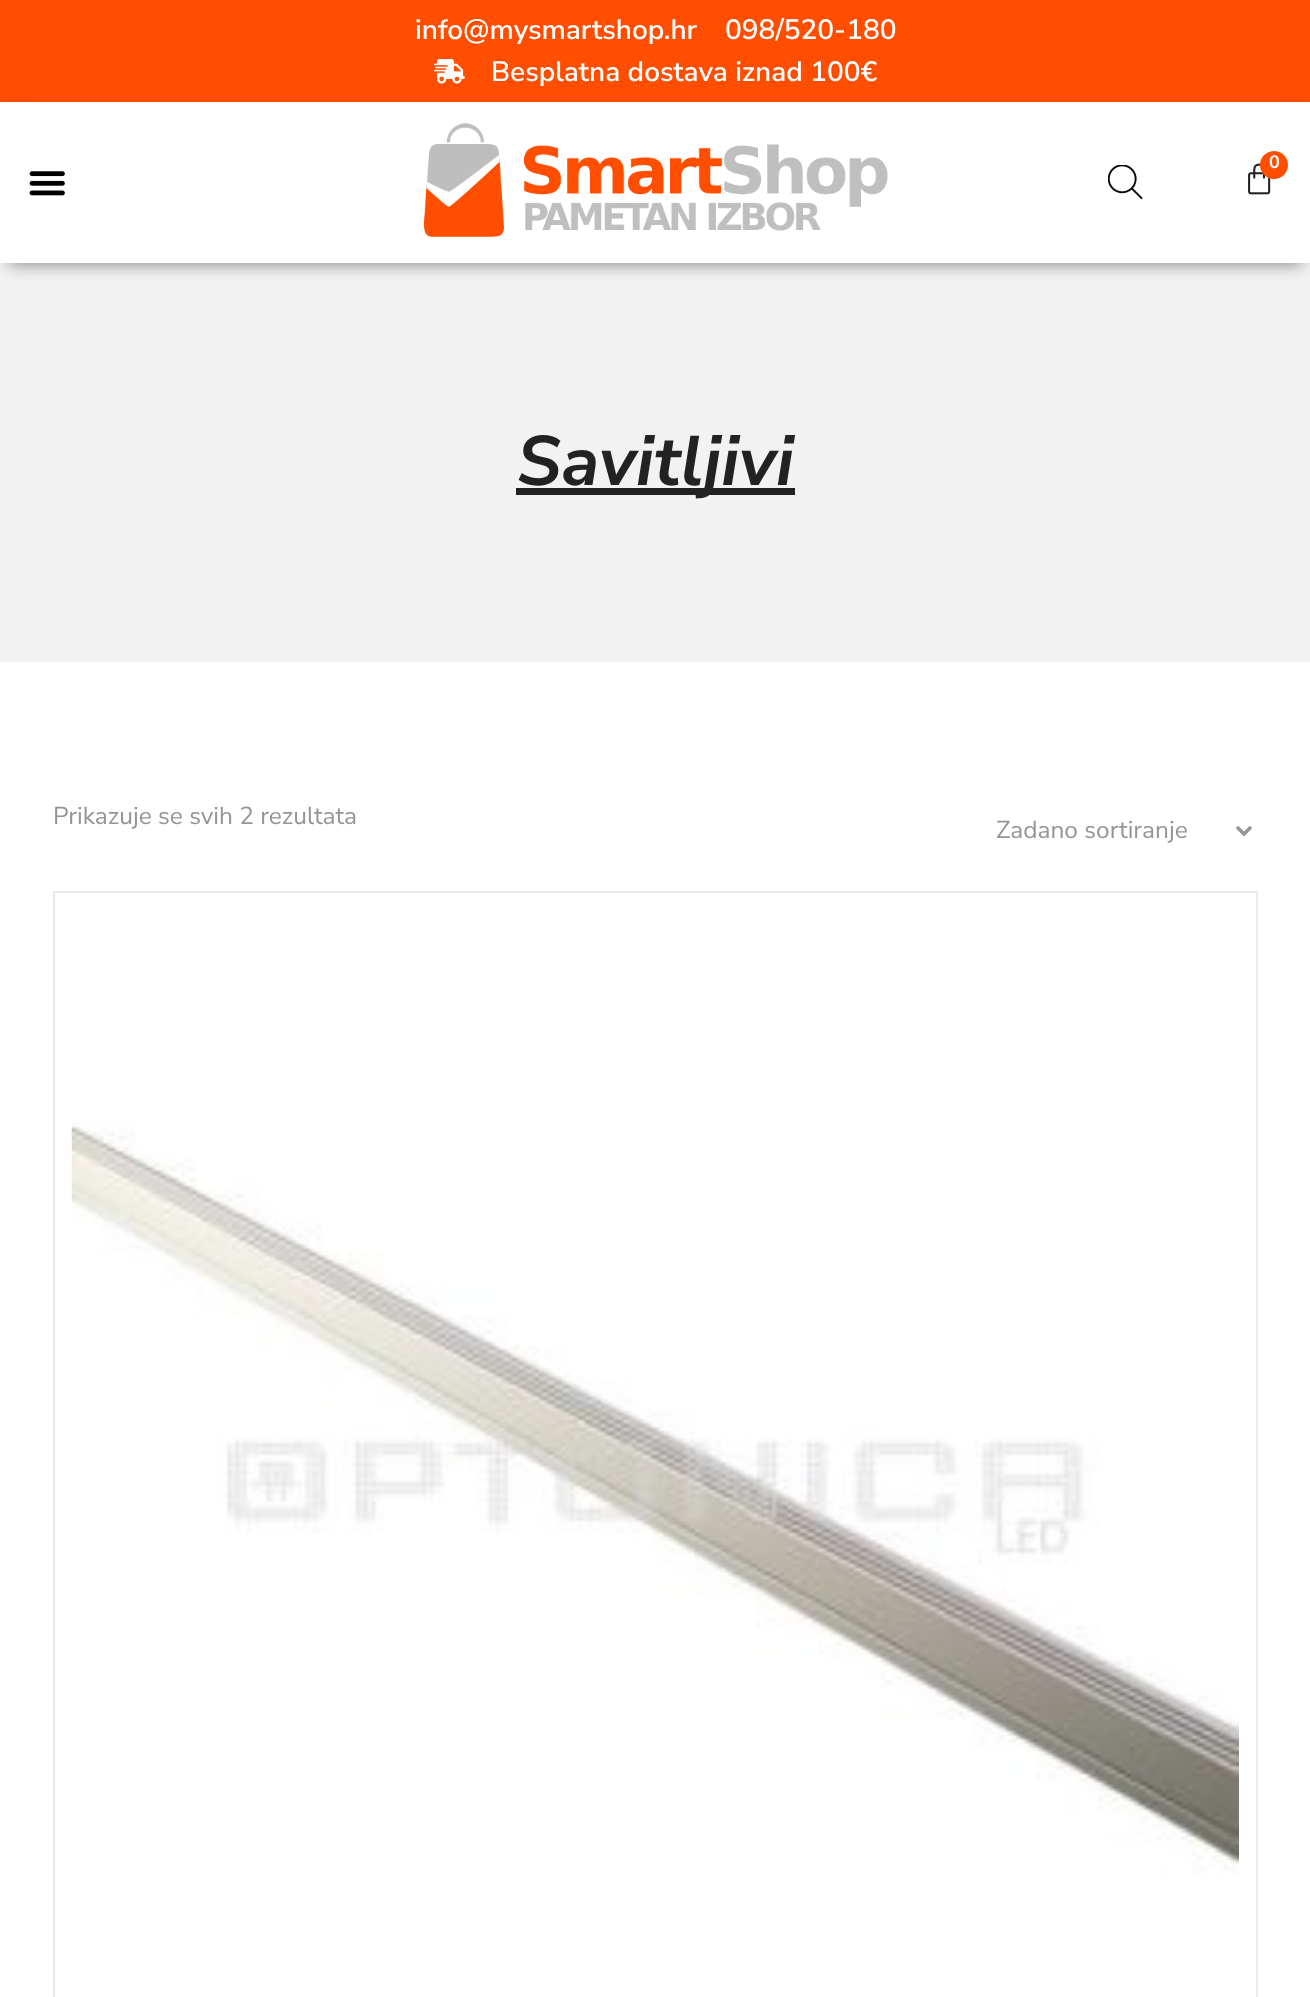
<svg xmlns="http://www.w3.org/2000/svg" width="1310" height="1997">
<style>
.a{font:600 28px Nunito Sans;fill:#fff}
.b{font:bold 18px Nunito Sans;fill:#fff}
.c{font:italic bold 70px Nunito Sans;fill:#222}
.d{font:24.5px Nunito Sans;fill:#939598}
</style>
<rect width="100%" height="100%" fill="#fff"/>
<path fill="#ff4e00" d="M0 0h1310v102H0z"/>
<image href="1.png" x="434" y="59" width="31" height="25"/>
<path fill="#f2f2f2" d="M0 263h1310v399H0z"/>
<path fill="#00000080" filter="blur(9px)" d="M9 119h1293v144H9z"/>
<path fill="#fff" d="M0 102h1310v161H0z"/>
<image href="2.png" x="423" y="123" width="465" height="114"/>
<image href="3.png" x="1248" y="163" width="23" height="32"/>
<circle fill="#ff4e00" cx="1274" cy="165" r="14"/>
<image href="4.png" x="1108" y="165" width="35" height="35"/>
<image href="5.png" x="29" y="171" width="36" height="25"/>
<path fill="#222" d="M516 488h279v7H516z"/>
<path fill="none" stroke="#939598" stroke-width="3.5" d="M1237 827l7 7l7-7"/>
<path fill="none" stroke="#eaeaea" stroke-width="2" d="M54 892h1203v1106H54z"/>
<image href="6.png" x="71" y="1120" width="1168" height="755"/>
<text class="a" x="415" y="39">info@mysmartshop.hr</text>
<text class="a" x="725" y="39">098/520-180</text>
<text class="a" x="491" y="81">Besplatna dostava iznad 100€</text>
<text class="b" x="1269" y="168">0</text>
<text class="c" x="517" y="485">Savitljivi</text>
<text class="d" x="53" y="824">Prikazuje se svih 2 rezultata</text>
<text class="d" x="996" y="838">Zadano sortiranje</text>
</svg>
